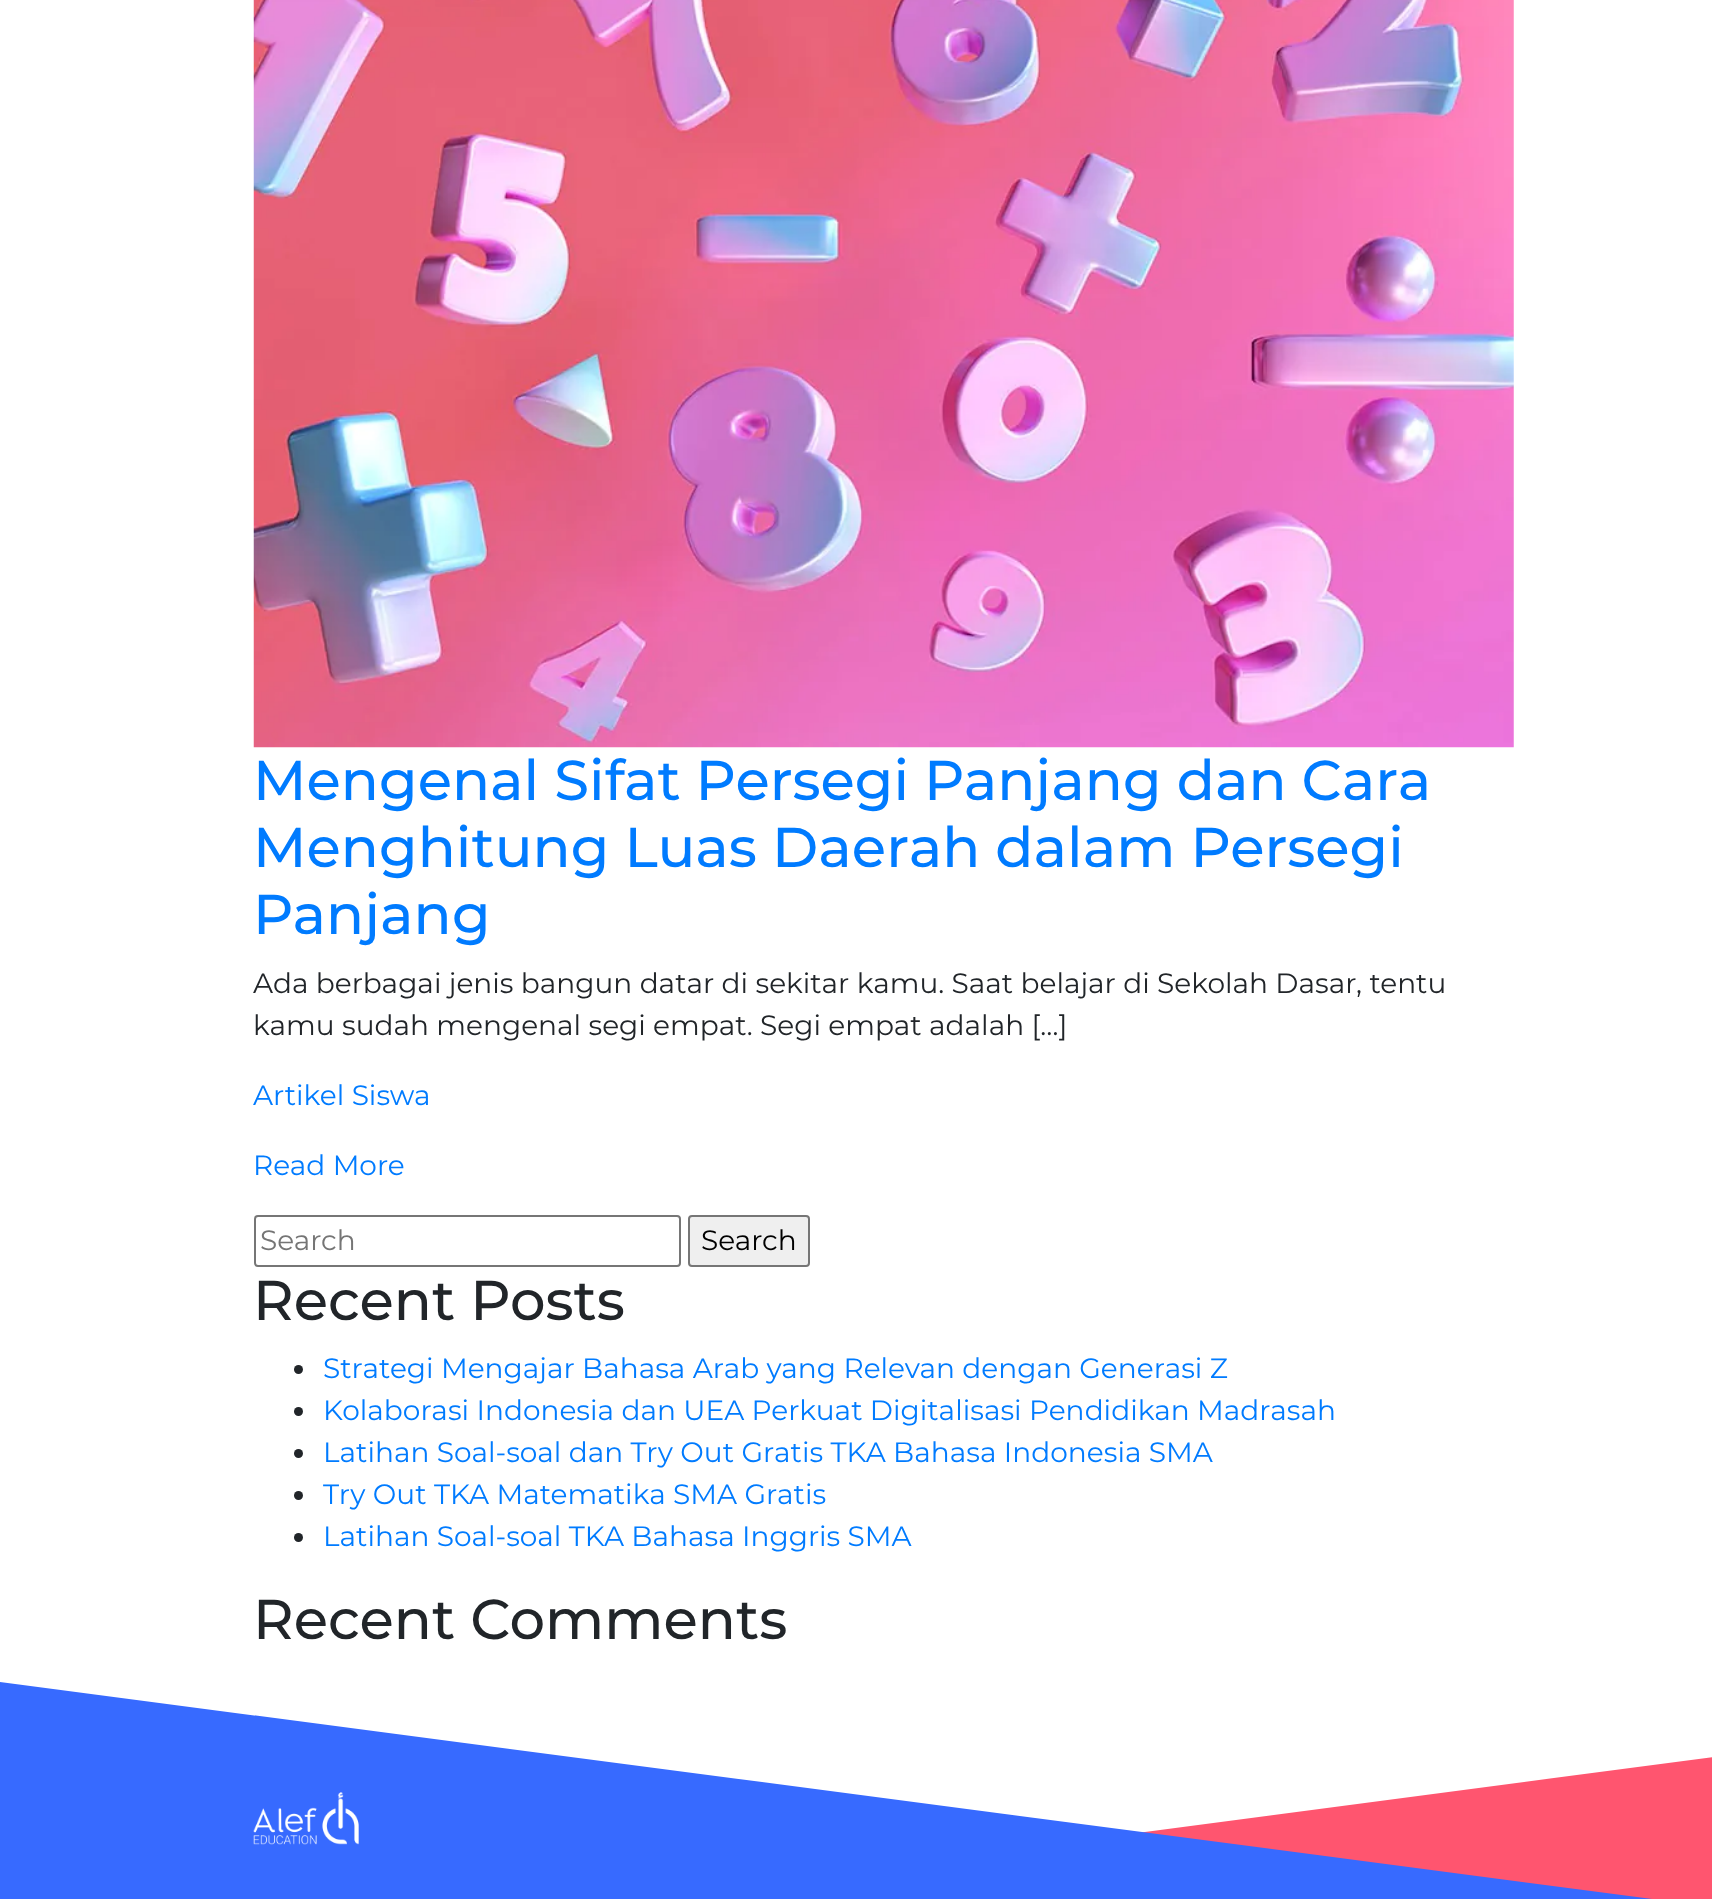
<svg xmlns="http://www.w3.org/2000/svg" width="1712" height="1899">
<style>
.a{font:500 56px Montserrat;fill:#007bff}
.b{font:28px Montserrat;fill:#212529}
.c{font:28px Montserrat;fill:#007bff}
.d{font:28px Montserrat;fill:#757575}
.e{font:28px Montserrat;fill:#000}
.f{font:500 56px Montserrat;fill:#212529}
</style>
<rect width="100%" height="100%" fill="#fff"/>
<image href="1.png" x="253" y="0" width="1261" height="748"/>
<rect fill="none" stroke="#767676" stroke-width="2" x="255" y="1216" width="425" height="50" rx="3"/>
<rect fill="#efefef" stroke="#767676" stroke-width="2" x="689" y="1216" width="120" height="50" rx="3"/>
<circle fill="#212529" cx="298.5" cy="1369.5" r="4.5"/>
<circle fill="#212529" cx="298.5" cy="1411.5" r="4.5"/>
<circle fill="#212529" cx="298.5" cy="1453.5" r="4.5"/>
<circle fill="#212529" cx="298.5" cy="1495.5" r="4.5"/>
<circle fill="#212529" cx="298.5" cy="1537.5" r="4.5"/>
<path fill="#ff556f" d="M0 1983v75h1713v-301z"/>
<path fill="#376aff" d="M0 1682v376h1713v-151z"/>
<image href="2.png" x="253" y="1792" width="106" height="53"/>
<text class="a" x="253" y="800">Mengenal Sifat Persegi Panjang dan Cara</text>
<text class="a" x="253" y="867">Menghitung Luas Daerah dalam Persegi</text>
<text class="a" x="253" y="934">Panjang</text>
<text class="b" x="253" y="993">Ada berbagai jenis bangun datar di sekitar kamu. Saat belajar di Sekolah Dasar, tentu</text>
<text class="b" x="253" y="1035">kamu sudah mengenal segi empat. Segi empat adalah […]</text>
<text class="c" x="253" y="1105">Artikel Siswa</text>
<text class="c" x="253" y="1175">Read More</text>
<text class="d" x="260" y="1250">Search</text>
<text class="e" x="701" y="1250">Search</text>
<text class="f" x="253" y="1320">Recent Posts</text>
<text class="c" x="323" y="1378">Strategi Mengajar Bahasa Arab yang Relevan dengan Generasi Z</text>
<text class="c" x="323" y="1420">Kolaborasi Indonesia dan UEA Perkuat Digitalisasi Pendidikan Madrasah</text>
<text class="c" x="323" y="1462">Latihan Soal-soal dan Try Out Gratis TKA Bahasa Indonesia SMA</text>
<text class="c" x="323" y="1504">Try Out TKA Matematika SMA Gratis</text>
<text class="c" x="323" y="1546">Latihan Soal-soal TKA Bahasa Inggris SMA</text>
<text class="f" x="253" y="1639">Recent Comments</text>
</svg>
